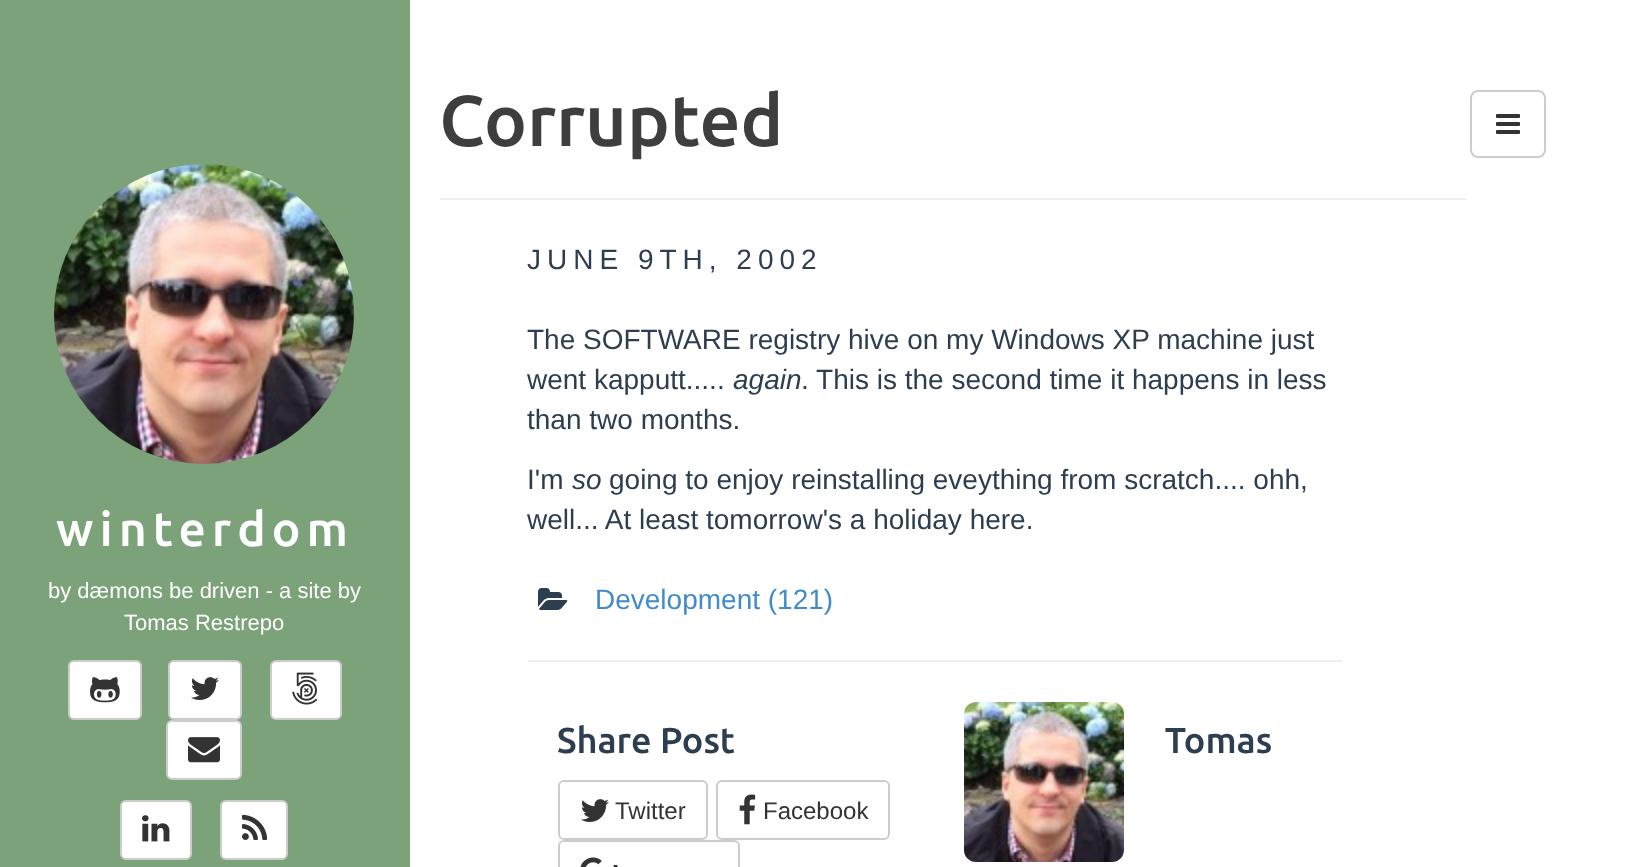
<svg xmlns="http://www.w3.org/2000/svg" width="1636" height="867">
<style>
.a{font:500 72px Ubuntu;fill:#3e3e3e}
.b{font:28px Liberation Sans;letter-spacing:6px;fill:#2c3e50}
.c{font:28px Liberation Sans;fill:#2c3e50}
.d{font:italic 28px Liberation Sans;fill:#2c3e50}
.e{font:28px Liberation Sans;fill:#428bca}
.f{font:500 36px Ubuntu;fill:#2c3e50}
.g{font:24px Liberation Sans;fill:#333}
.h{font:500 48px Ubuntu;letter-spacing:6px;fill:#fff}
.i{font:22px Liberation Sans;fill:#fff}
</style>
<rect width="100%" height="100%" fill="#fff"/>
<path fill="#eee" d="M440 198h1026v2H440z"/>
<image href="1.png" x="538" y="588" width="30" height="22"/>
<path fill="#eee" d="M528 660h814v2H528z"/>
<rect fill="none" stroke="#ccc" stroke-width="2" x="559" y="781" width="148" height="58" rx="5"/>
<image href="2.png" x="581" y="799" width="28" height="23"/>
<rect fill="none" stroke="#ccc" stroke-width="2" x="717" y="781" width="172" height="58" rx="5"/>
<image href="3.png" x="739" y="794" width="17" height="31"/>
<rect fill="none" stroke="#ccc" stroke-width="2" x="559" y="841" width="180" height="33" rx="5"/>
<image href="4.png" x="580" y="857" width="38" height="10"/>
<image href="5.png" x="964" y="702" width="160" height="160"/>
<rect fill="none" stroke="#ccc" stroke-width="2" x="1471" y="91" width="74" height="66" rx="7"/>
<image href="6.png" x="1496" y="114" width="24" height="20"/>
<path fill="#7ba279" d="M0 0h410v867H0z"/>
<image href="7.png" x="54" y="164" width="300" height="300"/>
<rect fill="#fff" stroke="#ccc" stroke-width="2" x="69" y="661" width="72" height="58" rx="5"/>
<image href="8.png" x="90" y="677" width="30" height="26"/>
<rect fill="#fff" stroke="#ccc" stroke-width="2" x="169" y="661" width="72" height="58" rx="5"/>
<image href="2.png" x="191" y="677" width="28" height="23"/>
<rect fill="#fff" stroke="#ccc" stroke-width="2" x="271" y="661" width="70" height="58" rx="5"/>
<image href="9.png" x="292" y="672" width="26" height="33"/>
<rect fill="#fff" stroke="#ccc" stroke-width="2" x="167" y="721" width="74" height="58" rx="5"/>
<image href="10.png" x="188" y="737" width="32" height="26"/>
<rect fill="#fff" stroke="#ccc" stroke-width="2" x="121" y="801" width="70" height="58" rx="5"/>
<image href="11.png" x="142" y="815" width="28" height="27"/>
<rect fill="#fff" stroke="#ccc" stroke-width="2" x="221" y="801" width="66" height="58" rx="5"/>
<image href="12.png" x="242" y="814" width="26" height="26"/>
<text class="a" x="439" y="146">Corrupted</text>
<text class="b" x="527" y="269">JUNE 9TH, 2002</text>
<text class="c" x="527" y="349">The SOFTWARE registry hive on my Windows XP machine just</text>
<text class="c" x="527" y="389">went kapputt.....</text>
<text class="d" x="733" y="389">again</text>
<text class="c" x="801" y="389">. This is the second time it happens in less</text>
<text class="c" x="527" y="429">than two months.</text>
<text class="c" x="527" y="489">I'm</text>
<text class="d" x="572" y="489">so</text>
<text class="c" x="609" y="489">going to enjoy reinstalling eveything from scratch.... ohh,</text>
<text class="c" x="527" y="529">well... At least tomorrow's a holiday here.</text>
<text class="e" x="595" y="609">Development (121)</text>
<text class="f" x="557" y="753">Share Post</text>
<text class="g" x="615" y="819">Twitter</text>
<text class="g" x="763" y="819">Facebook</text>
<text class="f" x="1165" y="753">Tomas</text>
<text class="h" x="56" y="546">winterdom</text>
<text class="i" x="48" y="598">by dæmons be driven - a site by</text>
<text class="i" x="124" y="630">Tomas Restrepo</text>
</svg>
